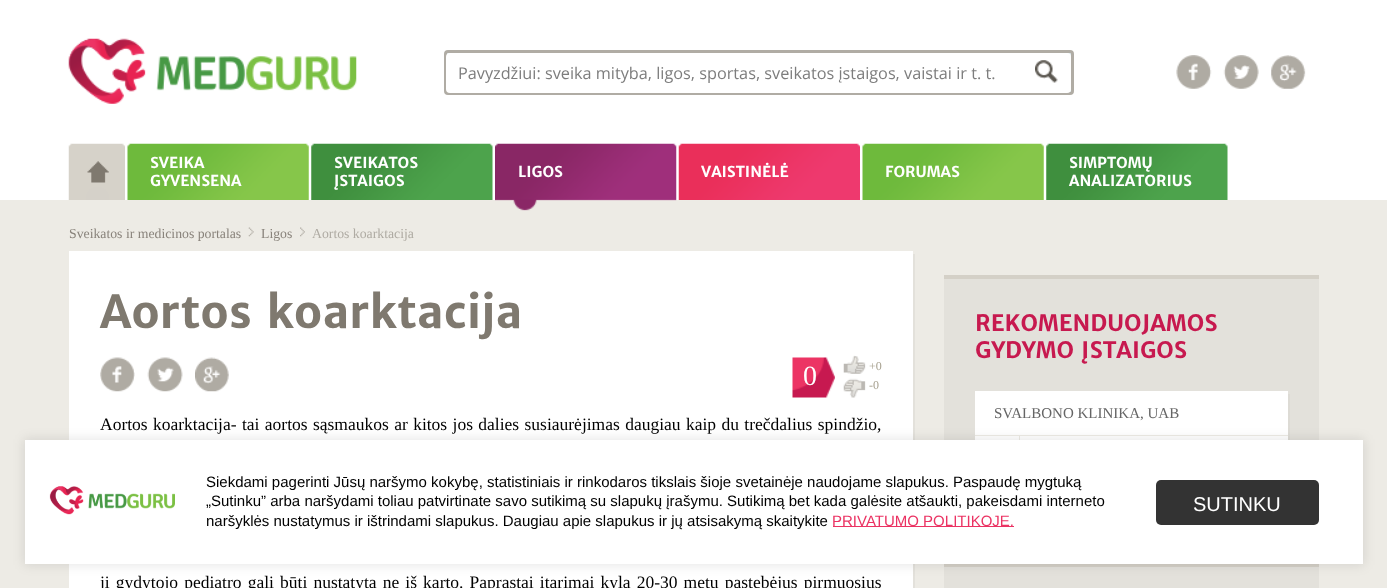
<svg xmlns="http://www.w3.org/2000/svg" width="1387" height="588">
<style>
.a{font:16.25px Open Sans;fill:#7d7d7d}
.b{font:bold 15px Merriweather Sans;fill:#fff}
.c{font:13.75px Liberation Serif;fill:#89837b}
.d{font:13.75px Liberation Serif;fill:#afaba3}
.e{font:bold 45px Merriweather Sans;fill:#7f796f}
.f{font:28px Liberation Serif;fill:#fff}
.g{font:12px Liberation Serif;fill:#a59f8d}
.h{font:17.5px Liberation Serif;fill:#000}
.i{font:bold 22.5px Merriweather Sans;fill:#c7194f}
.j{font:15px Liberation Serif;fill:#656565}
.k{font:15px Liberation Sans;fill:#000}
.l{font:15px Liberation Sans;fill:#eb3363}
.m{font:20px Liberation Sans;fill:#fff}
</style>
<rect width="100%" height="100%" fill="#edebe5"/>
<path fill="#fff" d="M0 0h1387v200H0z"/>
<image href="1.png" x="68" y="38" width="289" height="66"/>
<rect fill="#dbe9ee" stroke="#b0aca4" stroke-width="3" x="445.5" y="51.5" width="627" height="42" rx="2.5"/>
<rect fill="#fff" x="446" y="53" width="625" height="40" rx="4"/>
<image href="2.png" x="1035" y="60" width="23" height="23"/>
<image href="3.png" x="1176" y="55" width="36" height="34"/>
<image href="4.png" x="1223" y="55" width="36" height="34"/>
<image href="5.png" x="1271" y="55" width="35" height="34"/>
<image href="6.png" x="68" y="143" width="57" height="57"/>
<image href="7.png" x="127" y="143" width="182" height="57"/>
<image href="8.png" x="311" y="143" width="182" height="57"/>
<image href="9.png" x="495" y="143" width="182" height="68"/>
<image href="10.png" x="678" y="143" width="182" height="57"/>
<image href="7.png" x="862" y="143" width="182" height="57"/>
<image href="8.png" x="1046" y="143" width="182" height="57"/>
<image href="11.png" x="248" y="227" width="6" height="10"/>
<image href="12.png" x="300" y="227" width="5" height="10"/>
<path fill="#e3e1db" d="M71 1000v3h844v-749h-3v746z"/>
<path fill="#fff" d="M69 251h844v337H69z"/>
<image href="13.png" x="100" y="357" width="35" height="35"/>
<image href="14.png" x="147" y="357" width="36" height="35"/>
<image href="15.png" x="195" y="357" width="34" height="35"/>
<image href="16.png" x="792" y="357" width="43" height="41"/>
<image href="17.png" x="843" y="355" width="23" height="19"/>
<image href="18.png" x="843" y="378" width="23" height="20"/>
<path fill="#e3e1db" d="M944 279h375v161H944z"/>
<path fill="#d4d0c7" d="M944 275h375v4H944z"/>
<path fill="#dddbd5" d="M978 461v3h312v-70h-2v67z"/>
<path fill="#fff" d="M975 391h313v49H975z"/>
<path fill="#edebe5" d="M975 435h313v1H975z"/>
<path fill="#edebe5" d="M1019 436h1v4H1019z"/>
<path fill="#e3e1db" d="M944 567h375v21H944z"/>
<path fill="#d4d0c7" d="M944 564h375v3H944z"/>
<path fill="#0000001a" filter="blur(6px)" d="M24 439h1340v126H24z"/>
<path fill="#fff" d="M25 440h1338v124H25z"/>
<image href="19.png" x="49" y="486" width="126" height="29"/>
<path fill="#eb3363" d="M833 526h181v1H833z"/>
<rect fill="#333" x="1156" y="480" width="163" height="45" rx="5"/>
<text class="a" x="458" y="79">Pavyzdžiui: sveika mityba, ligos, sportas, sveikatos įstaigos, vaistai ir t. t.</text>
<text class="b" x="150" y="168">SVEIKA</text>
<text class="b" x="150" y="186">GYVENSENA</text>
<text class="b" x="334" y="168">SVEIKATOS</text>
<text class="b" x="334" y="186">ĮSTAIGOS</text>
<text class="b" x="518" y="177">LIGOS</text>
<text class="b" x="701" y="177">VAISTINĖLĖ</text>
<text class="b" x="885" y="177">FORUMAS</text>
<text class="b" x="1069" y="168">SIMPTOMŲ</text>
<text class="b" x="1069" y="186">ANALIZATORIUS</text>
<text class="c" x="69" y="238">Sveikatos ir medicinos portalas</text>
<text class="c" x="261" y="238">Ligos</text>
<text class="d" x="312" y="238">Aortos koarktacija</text>
<text class="e" x="100" y="328">Aortos koarktacija</text>
<text class="f" x="803" y="385">0</text>
<text class="g" x="869" y="370">+0</text>
<text class="g" x="869" y="389">-0</text>
<text class="h" x="100" y="430" word-spacing="1">Aortos koarktacija- tai aortos sąsmaukos ar kitos jos dalies susiaurėjimas daugiau kaip du trečdalius spindžio,</text>
<text class="h" x="100" y="588" word-spacing="1.75">ji gydytojo pediatro gali būti nustatyta ne iš karto. Paprastai įtarimai kyla 20-30 metų pastebėjus pirmuosius</text>
<text class="i" x="975" y="331">REKOMENDUOJAMOS</text>
<text class="i" x="975" y="358">GYDYMO ĮSTAIGOS</text>
<text class="j" x="994" y="418">SVALBONO KLINIKA, UAB</text>
<text class="k" x="206" y="487">Siekdami pagerinti Jūsų naršymo kokybę, statistiniais ir rinkodaros tikslais šioje svetainėje naudojame slapukus. Paspaudę mygtuką</text>
<text class="k" x="206" y="506">„Sutinku” arba naršydami toliau patvirtinate savo sutikimą su slapukų įrašymu. Sutikimą bet kada galėsite atšaukti, pakeisdami interneto</text>
<text class="k" x="206" y="526">naršyklės nustatymus ir ištrindami slapukus. Daugiau apie slapukus ir jų atsisakymą skaitykite</text>
<text class="l" x="832" y="526">PRIVATUMO POLITIKOJE.</text>
<text class="m" x="1193" y="511">SUTINKU</text>
</svg>
